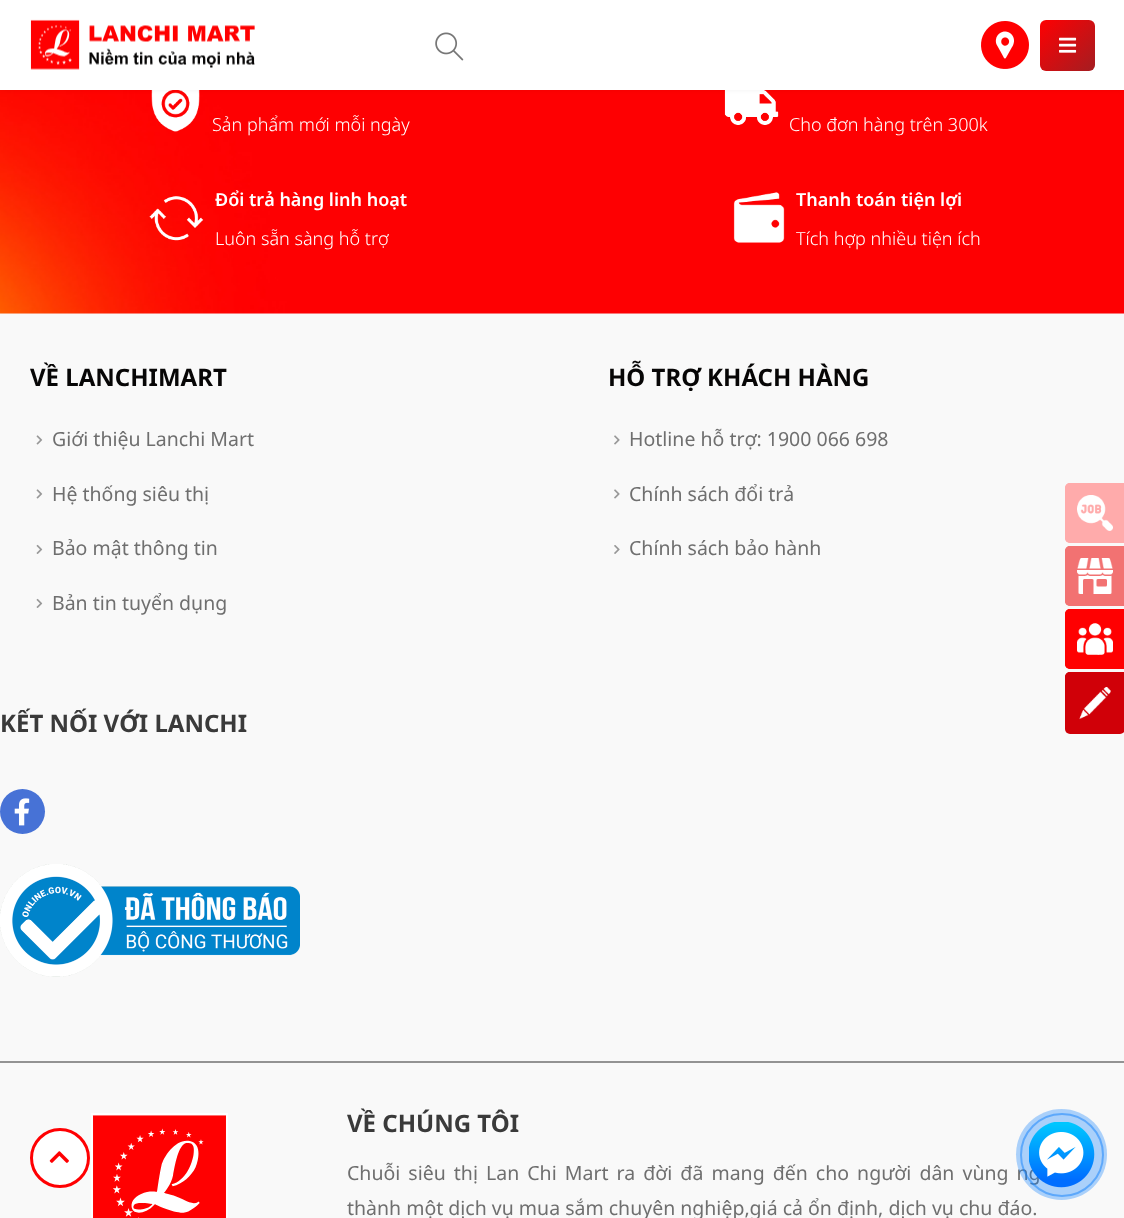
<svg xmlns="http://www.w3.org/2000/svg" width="1124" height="1218">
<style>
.a{font:300 18px Noto Sans;fill:#fff}
.b{font:600 18px Noto Sans;fill:#fff}
.c{font:bold 24px Noto Sans;fill:#070606}
.d{font:19.5px Noto Sans;fill:#6f6f6f}
.e{font:bold 24px Noto Sans;fill:#3a3a3a}
</style>
<defs>
<linearGradient id="g1" gradientUnits="userSpaceOnUse" x1="1094" y1="72" x2="1041" y2="18"><stop offset="0" stop-color="#a41d21"/><stop offset="1" stop-color="#ff0002"/></linearGradient>
</defs>
<rect width="100%" height="100%" fill="#f2f2f2"/>
<image href="5.png" x="0" y="90" width="1124" height="224"/>
<image href="6.png" x="151" y="90" width="49" height="42"/>
<image href="7.png" x="724" y="90" width="55" height="35"/>
<path fill="#0000000f" filter="blur(2px)" d="M0 0h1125v90H0z"/>
<path fill="#fff" d="M0 0h1124v90H0z"/>
<image href="1.png" x="30" y="19" width="225" height="51"/>
<image href="2.png" x="435" y="32" width="29" height="29"/>
<image href="3.png" x="981" y="21" width="48" height="48"/>
<rect fill="url(#g1)" x="1040" y="20" width="55" height="51" rx="6"/>
<image href="4.png" x="1059" y="37" width="18" height="16"/>
<image href="8.png" x="149" y="196" width="55" height="45"/>
<image href="9.png" x="733" y="192" width="52" height="51"/>
<path fill="#f9f9f9" d="M0 314h1124v747H0z"/>
<image href="10.png" x="36" y="435" width="7" height="10"/>
<image href="10.png" x="36" y="489" width="7" height="10"/>
<image href="11.png" x="36" y="544" width="7" height="10"/>
<image href="11.png" x="36" y="598" width="7" height="10"/>
<image href="12.png" x="614" y="435" width="6" height="10"/>
<image href="12.png" x="614" y="489" width="6" height="10"/>
<image href="13.png" x="614" y="545" width="6" height="9"/>
<circle fill="#4772d6" cx="22.5" cy="811.5" r="22.5"/>
<image href="14.png" x="14" y="798" width="16" height="28"/>
<image href="15.png" x="0" y="864" width="300" height="113"/>
<path fill="#f9f9f9" d="M0 1063h1124v155H0z"/>
<path fill="#939393" d="M0 1061h1124v2H0z"/>
<image href="16.png" x="91" y="1113" width="137" height="105"/>
<rect fill="#ffabab" x="1065" y="483" width="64" height="60" rx="5"/>
<rect fill="#ffabab" x="1065" y="483" width="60" height="60" rx="5"/>
<image href="17.png" x="1077" y="495" width="36" height="36"/>
<rect fill="#f27272" x="1065" y="546" width="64" height="60" rx="5"/>
<rect fill="#f27272" x="1065" y="546" width="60" height="60" rx="5"/>
<image href="18.png" x="1077" y="558" width="36" height="36"/>
<rect fill="#ff0001" x="1065" y="609" width="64" height="60" rx="5"/>
<rect fill="#ff0001" x="1065" y="609" width="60" height="60" rx="5"/>
<image href="19.png" x="1077" y="623" width="36" height="32"/>
<rect fill="#d00008" x="1065" y="672" width="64" height="60" rx="5"/>
<rect fill="#d00008" x="1065" y="672" width="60" height="62" rx="5"/>
<image href="20.png" x="1079" y="687" width="32" height="33"/>
<circle fill="#fff" stroke="#ff0002" stroke-width="3" cx="60" cy="1158" r="28.5"/>
<image href="21.png" x="49" y="1151" width="20" height="12"/>
<text class="a" x="212" y="131">Sản phẩm mới mỗi ngày</text>
<text class="a" x="789" y="131">Cho đơn hàng trên 300k</text>
<text class="b" x="215" y="206">Đổi trả hàng linh hoạt</text>
<text class="a" x="215" y="245">Luôn sẵn sàng hỗ trợ</text>
<text class="b" x="796" y="206">Thanh toán tiện lợi</text>
<text class="a" x="796" y="245">Tích hợp nhiều tiện ích</text>
<text class="c" x="30" y="386">VỀ LANCHIMART</text>
<text class="d" x="52" y="446">Giới thiệu Lanchi Mart</text>
<text class="d" x="52" y="501">Hệ thống siêu thị</text>
<text class="d" x="52" y="555">Bảo mật thông tin</text>
<text class="d" x="52" y="610">Bản tin tuyển dụng</text>
<text class="c" x="608" y="386">HỖ TRỢ KHÁCH HÀNG</text>
<text class="d" x="629" y="446">Hotline hỗ trợ: 1900 066 698</text>
<text class="d" x="629" y="501">Chính sách đổi trả</text>
<text class="d" x="629" y="555">Chính sách bảo hành</text>
<text class="e" x="0" y="732">KẾT NỐI VỚI LANCHI</text>
<text class="e" x="347" y="1132">VỀ CHÚNG TÔI</text>
<text class="d" x="347" y="1180" word-spacing="3">Chuỗi siêu thị Lan Chi Mart ra đời đã mang đến cho người dân vùng ng</text>
<text class="d" x="347" y="1215">thành một dịch vụ mua sắm chuyên nghiệp,giá cả ổn định, dịch vụ chu đáo.</text>
<circle fill="none" stroke="#1182fc80" stroke-width="2" cx="1062" cy="1155" r="41"/>
<circle fill="#1182fc57" cx="1061.5" cy="1154.5" r="45.5"/>
<image href="22.png" x="1029" y="1122" width="66" height="66"/>
</svg>
